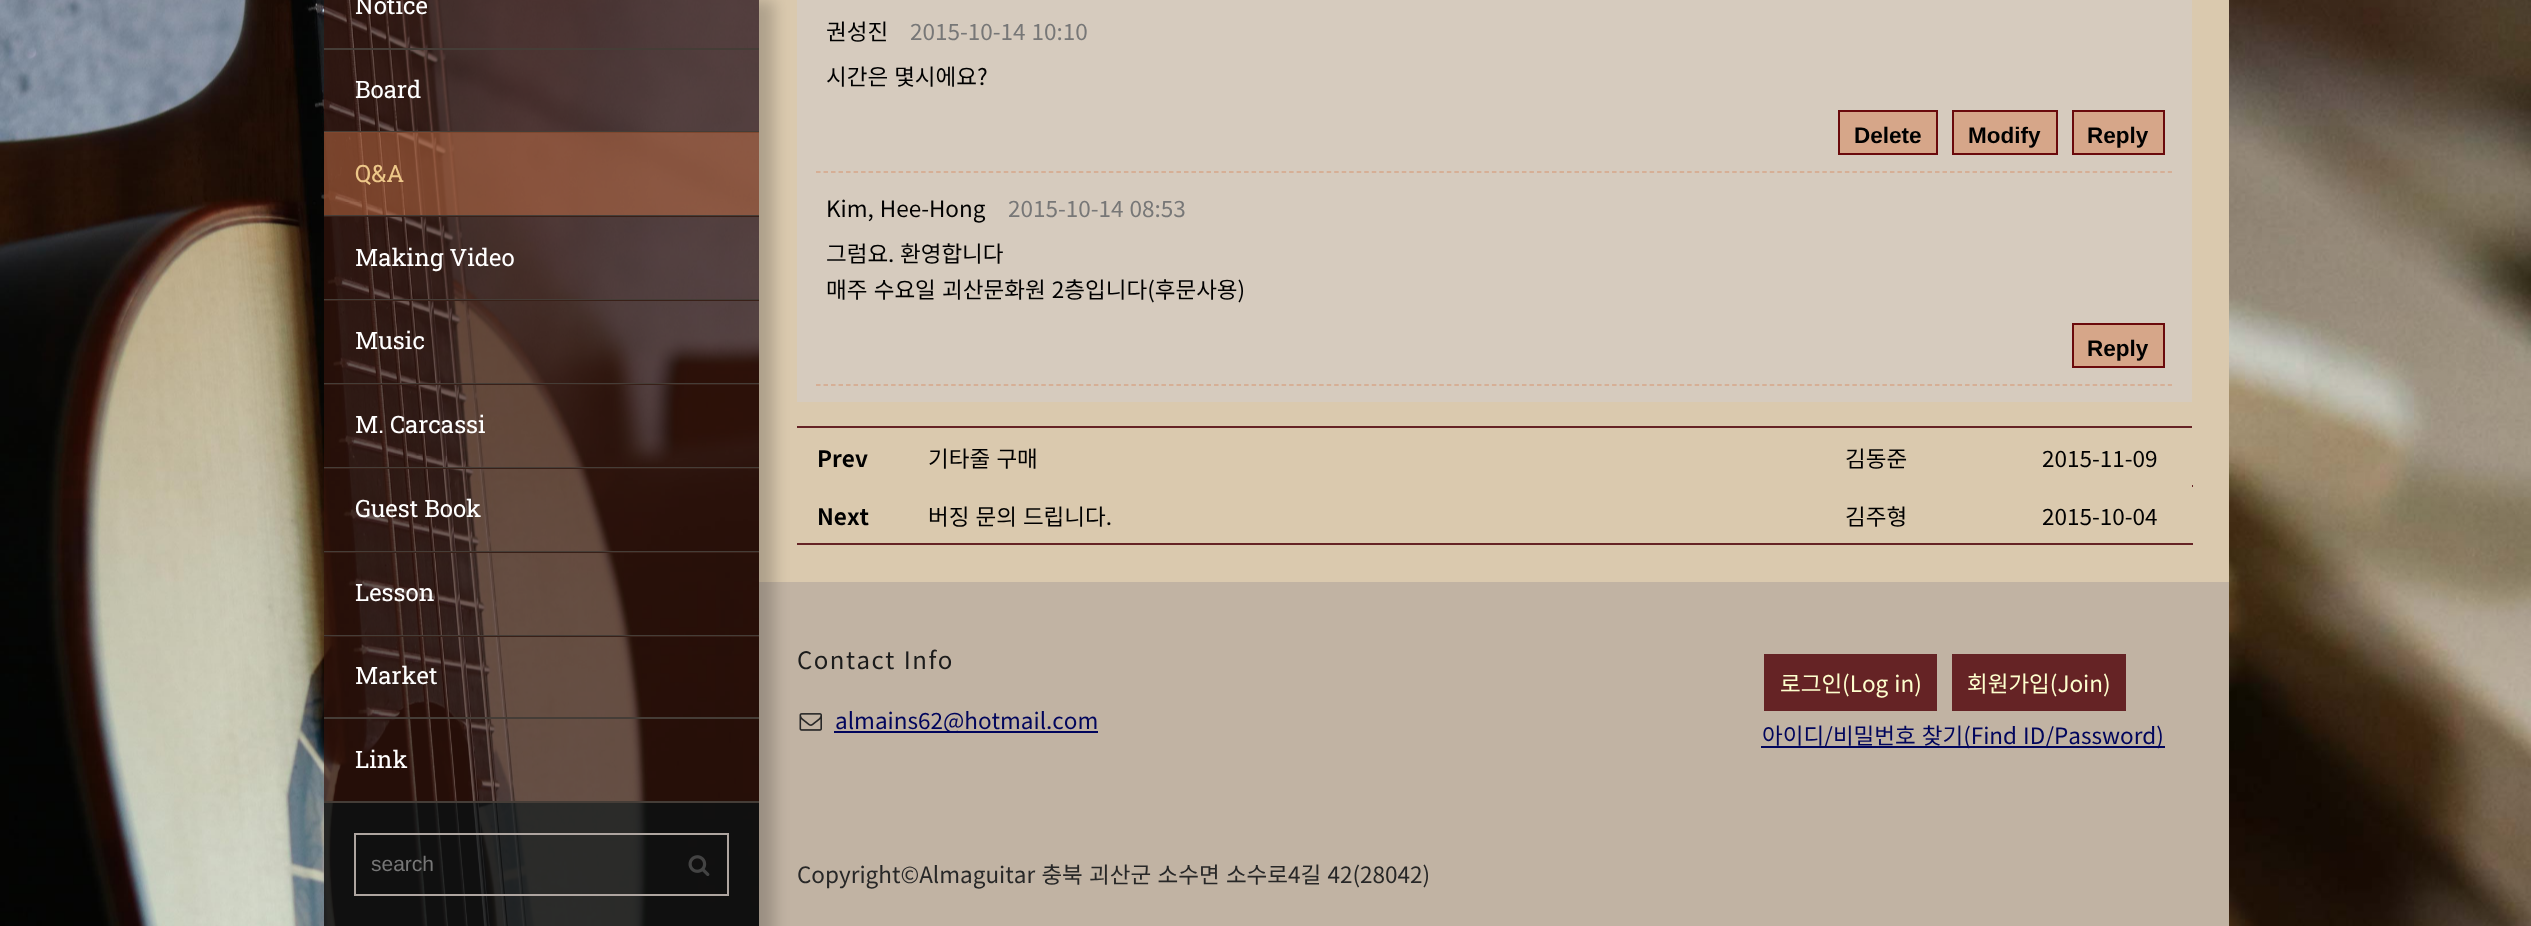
<svg xmlns="http://www.w3.org/2000/svg" width="2531" height="926">
<style>*{font-kerning:none!important;font-variant-ligatures:none!important}</style>
<style>
.a{font:24px Roboto Slab;fill:#fff}
.b{font:24px Roboto Slab;fill:#edc789}
.c{font:21px Liberation Sans;fill:#777}
.d{font:22.5px Noto Sans KR;fill:#000}
.e{font:22.5px Noto Sans KR;fill:#777}
.f{font:bold 22.5px Liberation Sans;fill:#000}
.g{font:bold 22.5px Noto Sans KR;fill:#000}
.h{font:24px Noto Sans KR;letter-spacing:1.5px;fill:#1b1b1b}
.i{font:22.5px Noto Sans KR;fill:#00055c}
.j{font:22.5px Noto Sans KR;fill:#feffce}
.k{font:22.5px Noto Sans KR;fill:#272727}
</style>
<rect width="100%" height="100%" fill="#fff"/>
<path fill="#dac9ae" d="M759 0h1470v582H759z"/>
<path fill="#d6cbbe" d="M797 0h1395v402H797z"/>
<path fill="#652325" d="M797 426h1395v2H797z"/>
<path fill="#652325" d="M797 543h1396v2H797z"/>
<path fill="#c1b3a3" d="M759 582h1470v237H759z"/>
<path fill="#c1b3a3" d="M759 819h1470v107H759z"/>
<path fill="#00000033" filter="blur(7.5px)" d="M-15 0h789v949H-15z"/>
<image href="1.png" x="0" y="0" width="759" height="926"/>
<path fill="#35140cb3" d="M324 0h435v48H324z"/>
<path fill="#453d37" d="M324 48h435v2H324z"/>
<path fill="#35140cb3" d="M324 50h435v81H324z"/>
<path fill="#453d37" d="M324 131h435v2H324z"/>
<path fill="#8a4a2ed9" d="M324 132h435v83H324z"/>
<path fill="#453d37" d="M324 215h435v2H324z"/>
<path fill="#35140cb3" d="M324 216h435v83H324z"/>
<path fill="#453d37" d="M324 299h435v2H324z"/>
<path fill="#35140cb3" d="M324 300h435v83H324z"/>
<path fill="#453d37" d="M324 383h435v2H324z"/>
<path fill="#35140cb3" d="M324 384h435v83H324z"/>
<path fill="#453d37" d="M324 467h435v2H324z"/>
<path fill="#35140cb3" d="M324 468h435v83H324z"/>
<path fill="#453d37" d="M324 551h435v2H324z"/>
<path fill="#35140cb3" d="M324 552h435v83H324z"/>
<path fill="#453d37" d="M324 635h435v2H324z"/>
<path fill="#35140cb3" d="M324 636h435v81H324z"/>
<path fill="#453d37" d="M324 717h435v2H324z"/>
<path fill="#35140cb3" d="M324 719h435v82H324z"/>
<path fill="#453d37" d="M324 801h435v2H324z"/>
<path fill="#121212e0" d="M324 803h435v123H324z"/>
<path fill="none" stroke="#aea5a0" stroke-width="2" d="M355 834h373v61H355z"/>
<image href="2.png" x="688" y="855" width="22" height="21"/>
<image href="3.png" x="2229" y="0" width="302" height="926"/>
<path fill="none" stroke="#d6a689" stroke-width="1.5" stroke-dasharray="4.5 3.01" d="M816 172h1356"/>
<path fill="#d6a689" stroke="#6b0a0c" stroke-width="2" d="M1839 111h98v43H1839z"/>
<path fill="#d6a689" stroke="#6b0a0c" stroke-width="2" d="M1953 111h104v43H1953z"/>
<path fill="#d6a689" stroke="#6b0a0c" stroke-width="2" d="M2073 111h91v43H2073z"/>
<path fill="none" stroke="#d6a689" stroke-width="1.5" stroke-dasharray="4.5 3.01" d="M816 385h1356"/>
<path fill="#d6a689" stroke="#6b0a0c" stroke-width="2" d="M2073 324h91v43H2073z"/>
<path fill="#652325" d="M2192 485h1v2H2192z"/>
<image href="4.png" x="799" y="713" width="23" height="18"/>
<path fill="#00055c" d="M834 731h264v2H834z"/>
<path fill="#652325" d="M1764 654h173v57H1764z"/>
<path fill="#652325" d="M1952 654h174v57H1952z"/>
<path fill="#00055c" d="M1761 746h404v2H1761z"/>
<text class="a" x="355" y="14">Notice</text>
<text class="a" x="355" y="98">Board</text>
<text class="b" x="355" y="182">Q&amp;A</text>
<text class="a" x="355" y="266">Making Video</text>
<text class="a" x="355" y="349">Music</text>
<text class="a" x="355" y="433">M. Carcassi</text>
<text class="a" x="355" y="517">Guest Book</text>
<text class="a" x="355" y="601">Lesson</text>
<text class="a" x="355" y="684">Market</text>
<text class="a" x="355" y="768">Link</text>
<text class="c" x="371" y="871">search</text>
<text class="d" x="826" y="40">권성진</text>
<text class="e" x="910" y="40" word-spacing="1">2015-10-14 10:10</text>
<text class="d" x="826" y="85" word-spacing="1">시간은 몇시에요?</text>
<text class="f" x="1854" y="143">Delete</text>
<text class="f" x="1968" y="143">Modify</text>
<text class="f" x="2087" y="143">Reply</text>
<text class="d" x="826" y="217" word-spacing="1">Kim, Hee-Hong</text>
<text class="e" x="1008" y="217" word-spacing="1">2015-10-14 08:53</text>
<text class="d" x="826" y="262">그럼요.</text>
<text class="d" x="900" y="262">환영합니다</text>
<text class="d" x="826" y="298" word-spacing="1.25">매주 수요일 괴산문화원 2층입니다(후문사용)</text>
<text class="f" x="2087" y="356">Reply</text>
<text class="g" x="817" y="467">Prev</text>
<text class="d" x="928" y="467" word-spacing="1.25">기타줄 구매</text>
<text class="d" x="1845" y="467">김동준</text>
<text class="d" x="2042" y="467">2015-11-09</text>
<text class="g" x="817" y="525">Next</text>
<text class="d" x="928" y="525" word-spacing="1">버징 문의 드립니다.</text>
<text class="d" x="1845" y="525">김주형</text>
<text class="d" x="2042" y="525">2015-10-04</text>
<text class="h" x="797" y="669" word-spacing="1">Contact Info</text>
<text class="i" x="835" y="729">almains62@hotmail.com</text>
<text class="j" x="1780" y="692" word-spacing="1">로그인(Log in)</text>
<text class="j" x="1967" y="692">회원가입(Join)</text>
<text class="i" x="1762" y="744" word-spacing="1">아이디/비밀번호 찾기(Find ID/Password)</text>
<text class="k" x="797" y="883" word-spacing="1.25">Copyright©Almaguitar 충북 괴산군 소수면 소수로4길 42(28042)</text>
</svg>
